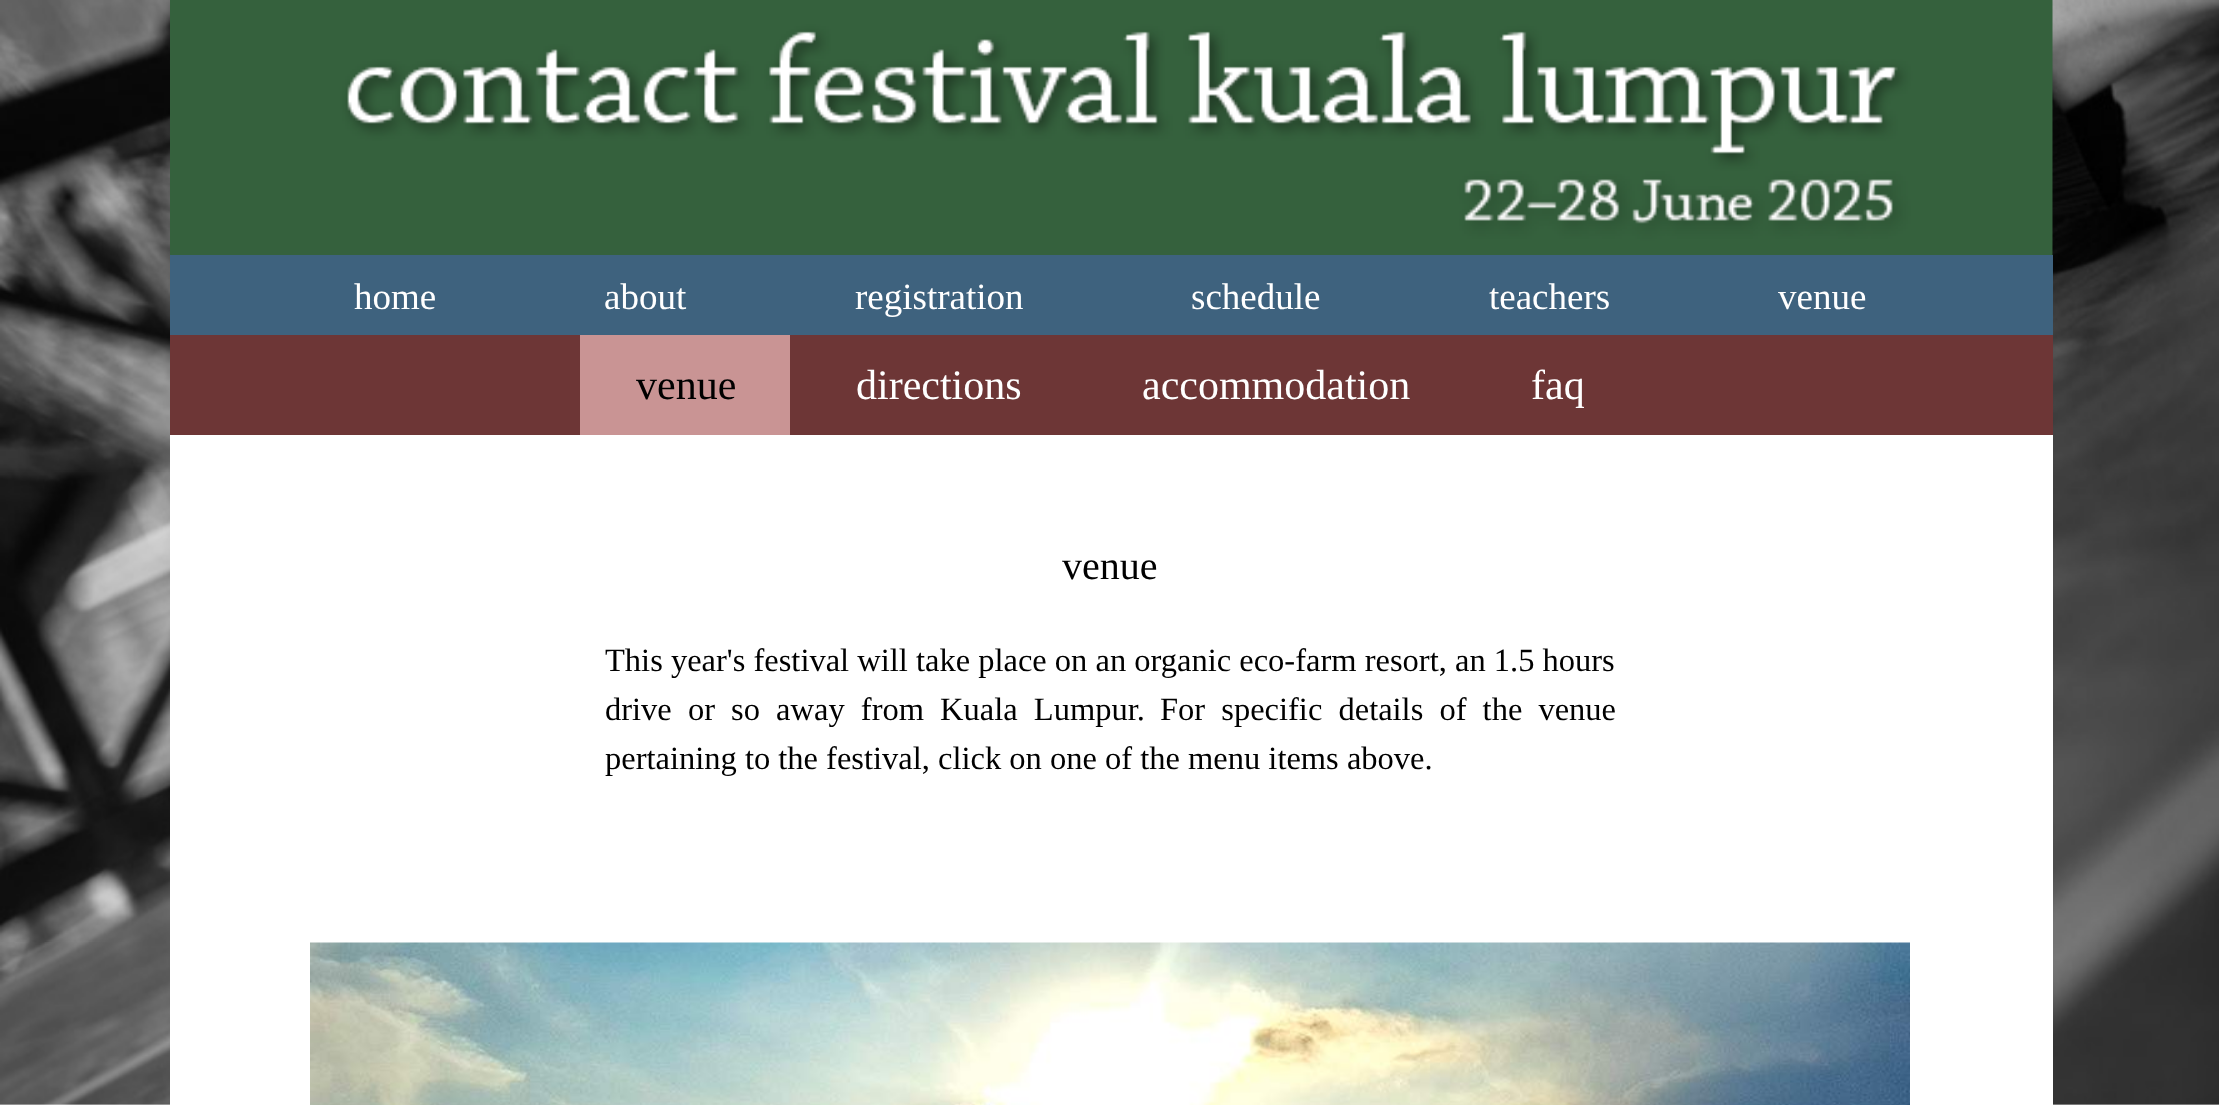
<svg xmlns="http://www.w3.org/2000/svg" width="2219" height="1105">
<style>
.a{font:37px Liberation Serif;fill:#fff}
.b{font:42px Liberation Serif;fill:#000}
.c{font:42px Liberation Serif;fill:#fff}
.d{font:40px Liberation Serif;fill:#000}
.e{font:32.5px Liberation Serif;fill:#000}
</style>
<rect width="100%" height="100%" fill="#fff"/>
<image href="1.png" x="0" y="0" width="2219" height="1105"/>
<image href="2.png" x="170" y="0" width="1883" height="255"/>
<path fill="#3e627e" d="M170 255h1883v80H170z"/>
<path fill="#6d3636" d="M170 335h1883v100H170z"/>
<path fill="#c99494" d="M580 335h210v100H580z"/>
<path fill="#fff" d="M170 435h1883v670H170z"/>
<image href="3.png" x="310" y="942" width="1600" height="163"/>
<text class="a" x="354" y="309">home</text>
<text class="a" x="604" y="309">about</text>
<text class="a" x="855" y="309">registration</text>
<text class="a" x="1191" y="309">schedule</text>
<text class="a" x="1489" y="309">teachers</text>
<text class="a" x="1778" y="309">venue</text>
<text class="b" x="636" y="399">venue</text>
<text class="c" x="856" y="399">directions</text>
<text class="c" x="1142" y="399">accommodation</text>
<text class="c" x="1531" y="399">faq</text>
<text class="d" x="1062" y="579">venue</text>
<text class="e" x="605" y="671">This year's festival will take place on an organic eco-farm resort,</text>
<text class="e" x="1455" y="671">an 1.5 hours</text>
<text class="e" x="605" y="720" word-spacing="8">drive or so away from Kuala Lumpur.</text>
<text class="e" x="1160" y="720" word-spacing="8">For specific details of the venue</text>
<text class="e" x="605" y="769">pertaining to the festival, click on one of the menu items above.</text>
</svg>
